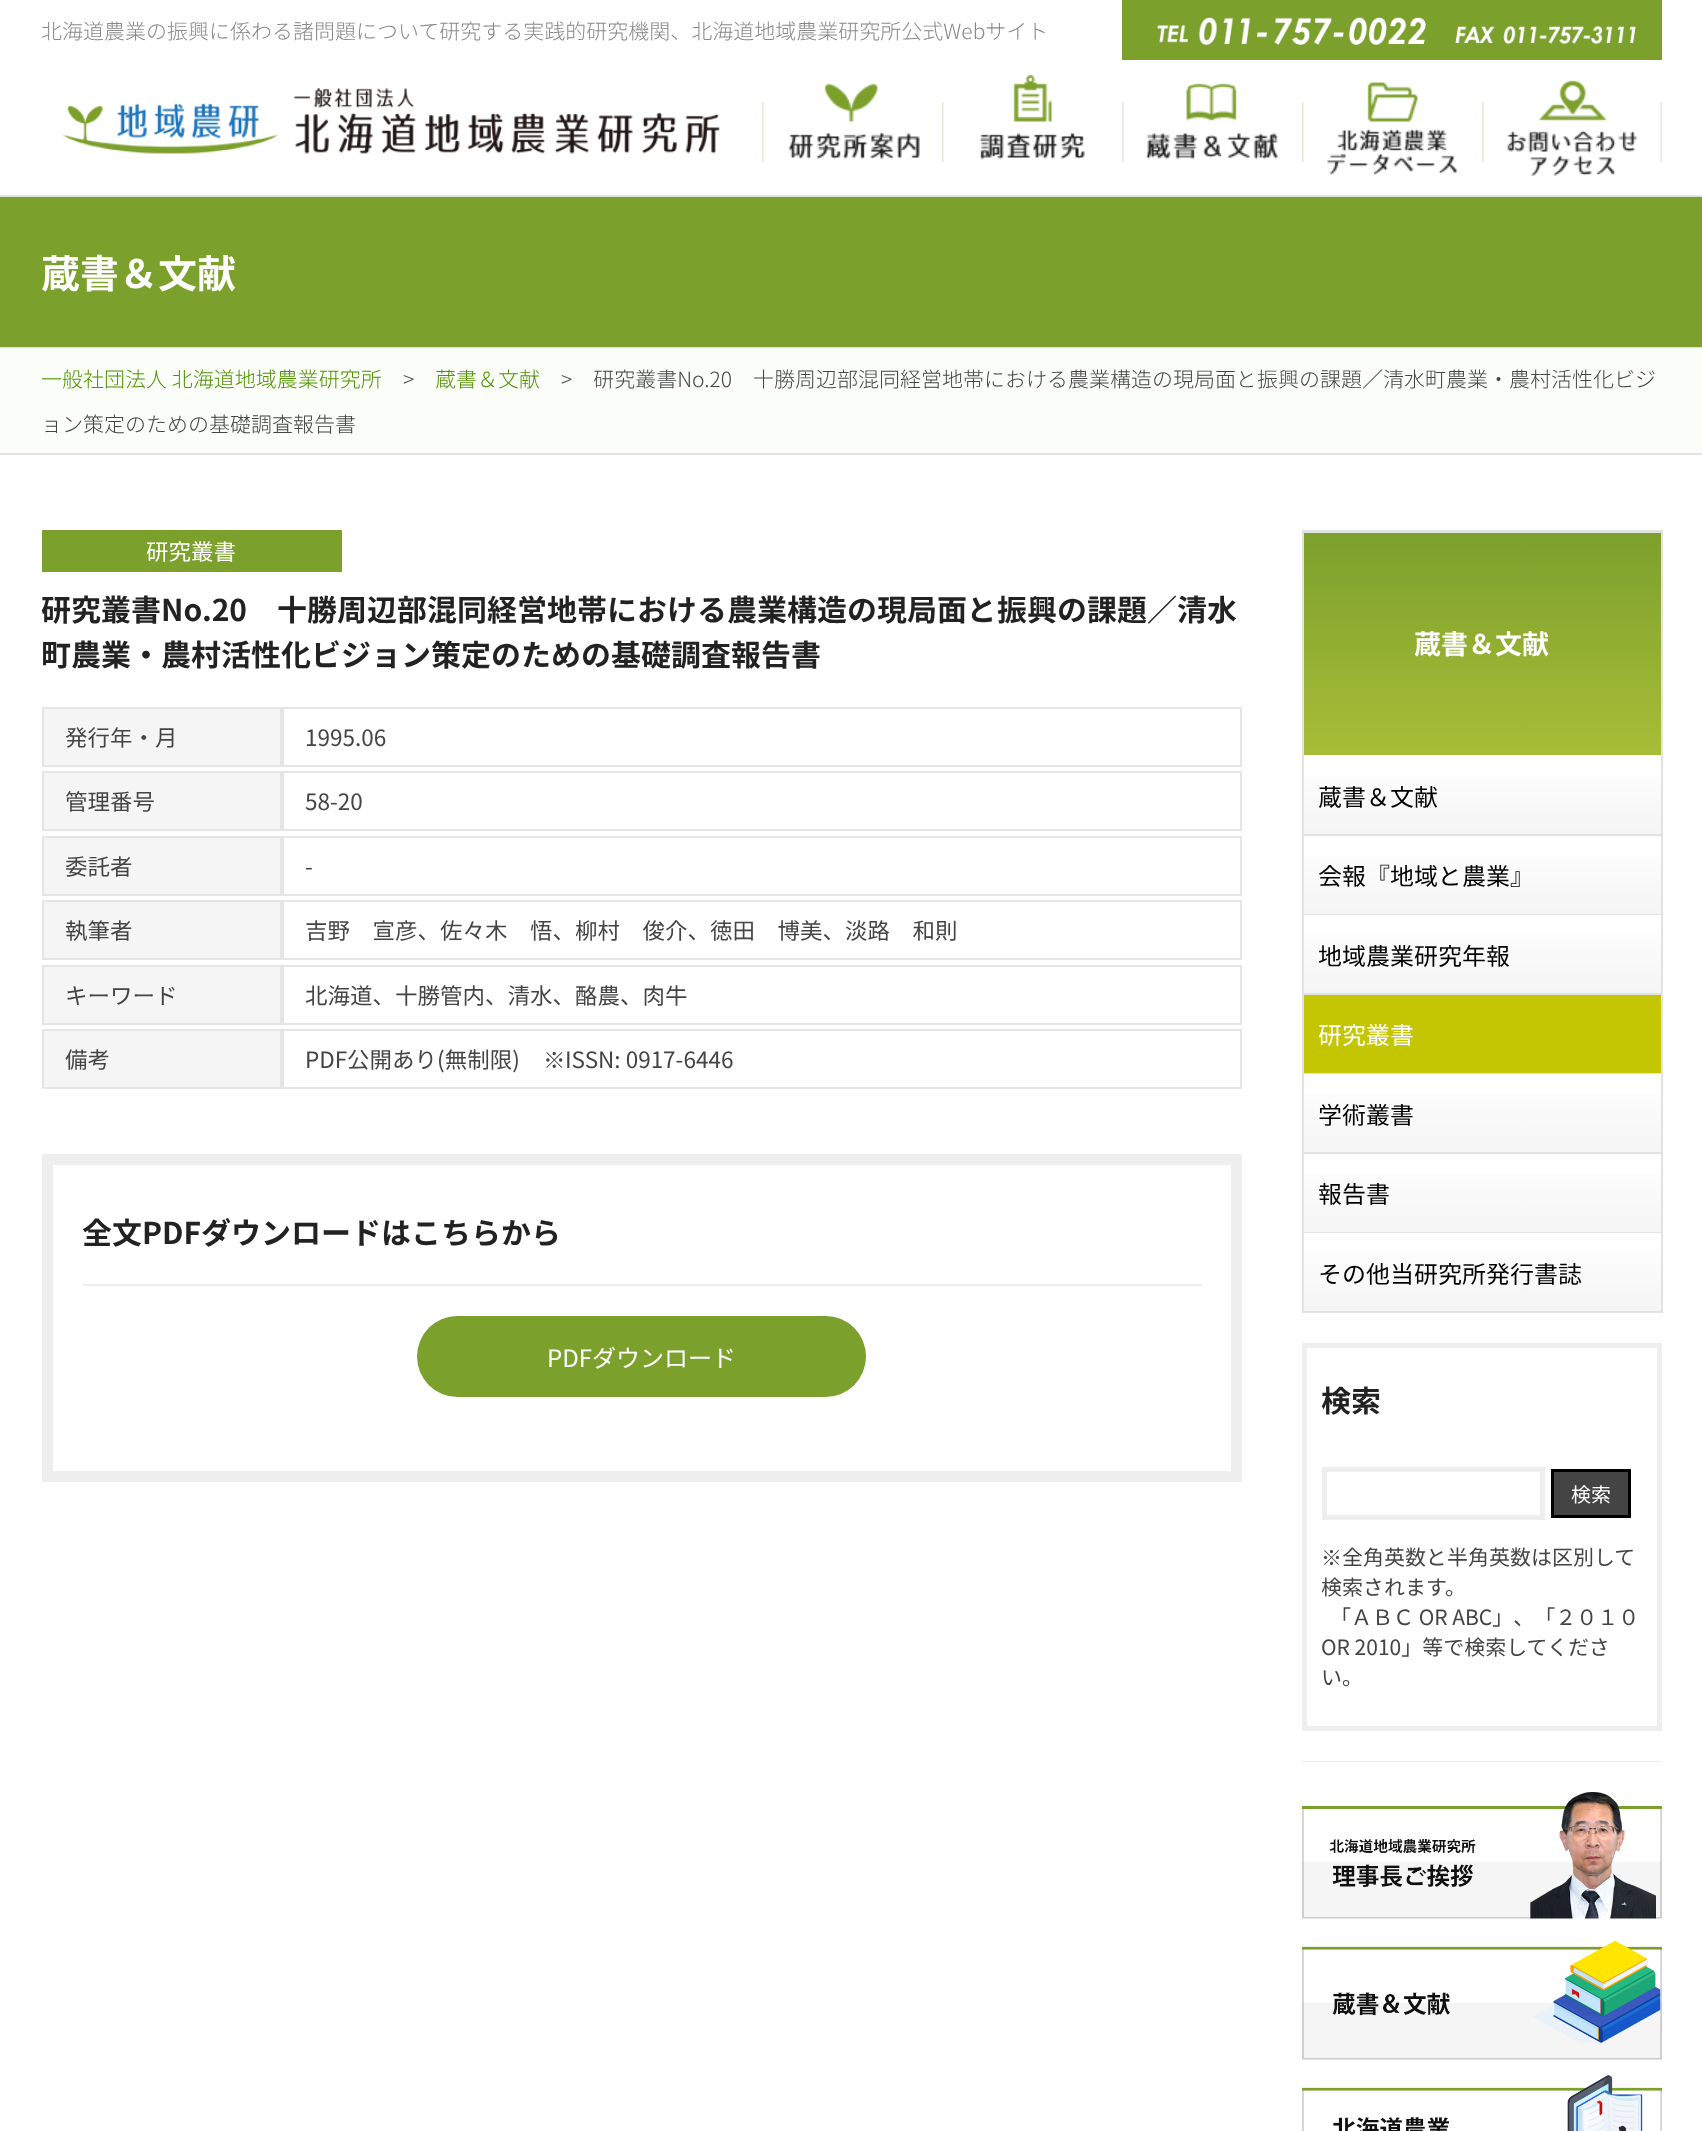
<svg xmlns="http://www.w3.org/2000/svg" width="1702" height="2131">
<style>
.a{font:300 21px Noto Sans JP;fill:#888}
.b{font:bold 39px Noto Sans JP;fill:#fff}
.c{font:300 21px Noto Sans JP;fill:#509300}
.d{font:300 21px Noto Sans JP;fill:#444}
.e{font:22.5px Noto Sans JP;fill:#fff}
.f{font:bold 30px Noto Sans JP;fill:#222}
.g{font:22.5px Noto Sans JP;fill:#444}
.h{font:500 22.5px WenQuanYi Zen Hei;fill:#444}
.i{font:24px Noto Sans JP;fill:#fff}
.j{font:bold 27px Noto Sans JP;fill:#fff}
.k{font:24px Noto Sans JP;fill:#000}
.l{font:20px Noto Sans JP;fill:#fff}
.m{font:500 21px WenQuanYi Zen Hei;fill:#444}
.n{font:21px Noto Sans JP;fill:#444}
</style>
<defs>
<linearGradient id="g1" gradientUnits="userSpaceOnUse" x1="1482" y1="533" x2="1482" y2="755"><stop offset="0" stop-color="#7ca02c"/><stop offset="1" stop-color="#a8bd37"/></linearGradient>
<linearGradient id="g2" gradientUnits="userSpaceOnUse" x1="1482" y1="756" x2="1482" y2="834"><stop offset="0" stop-color="#fff"/><stop offset="1" stop-color="#f5f5f5"/></linearGradient>
<linearGradient id="g3" gradientUnits="userSpaceOnUse" x1="1482" y1="836" x2="1482" y2="914"><stop offset="0" stop-color="#fff"/><stop offset="1" stop-color="#f5f5f5"/></linearGradient>
<linearGradient id="g4" gradientUnits="userSpaceOnUse" x1="1482" y1="915" x2="1482" y2="993"><stop offset="0" stop-color="#fff"/><stop offset="1" stop-color="#f5f5f5"/></linearGradient>
<linearGradient id="g5" gradientUnits="userSpaceOnUse" x1="1482" y1="1074" x2="1482" y2="1152"><stop offset="0" stop-color="#fff"/><stop offset="1" stop-color="#f5f5f5"/></linearGradient>
<linearGradient id="g6" gradientUnits="userSpaceOnUse" x1="1482" y1="1154" x2="1482" y2="1232"><stop offset="0" stop-color="#fff"/><stop offset="1" stop-color="#f5f5f5"/></linearGradient>
<linearGradient id="g7" gradientUnits="userSpaceOnUse" x1="1482" y1="1233" x2="1482" y2="1311"><stop offset="0" stop-color="#fff"/><stop offset="1" stop-color="#f5f5f5"/></linearGradient>
</defs>
<rect width="100%" height="100%" fill="#fff"/>
<image href="1.png" x="1122" y="0" width="540" height="60"/>
<image href="2.png" x="62" y="88" width="658" height="66"/>
<image href="3.png" x="762" y="83" width="158" height="80"/>
<image href="4.png" x="942" y="74" width="143" height="89"/>
<image href="5.png" x="1122" y="83" width="157" height="80"/>
<image href="6.png" x="1302" y="82" width="155" height="93"/>
<image href="7.png" x="1482" y="80" width="180" height="96"/>
<path fill="#7ca02c" d="M0 197h1702v150H0z"/>
<path fill="#e2e2e2" d="M0 195h1702v2H0z"/>
<path fill="#e2e2e2" d="M0 347h1702v1H0z"/>
<path fill="#fbfdf8" d="M0 348h1702v105H0z"/>
<path fill="#e2e2e2" d="M0 453h1702v2H0z"/>
<path fill="#7ca02c" d="M42 530h300v42H42z"/>
<path fill="#f5f5f5" stroke="#e5e5e5" stroke-width="2" d="M43 708h238v58H43z"/>
<path fill="none" stroke="#e5e5e5" stroke-width="2" d="M283 708h958v58H283z"/>
<path fill="#f5f5f5" stroke="#e5e5e5" stroke-width="2" d="M43 772h238v58H43z"/>
<path fill="none" stroke="#e5e5e5" stroke-width="2" d="M283 772h958v58H283z"/>
<path fill="#f5f5f5" stroke="#e5e5e5" stroke-width="2" d="M43 837h238v58H43z"/>
<path fill="none" stroke="#e5e5e5" stroke-width="2" d="M283 837h958v58H283z"/>
<path fill="#f5f5f5" stroke="#e5e5e5" stroke-width="2" d="M43 901h238v58H43z"/>
<path fill="none" stroke="#e5e5e5" stroke-width="2" d="M283 901h958v58H283z"/>
<path fill="#f5f5f5" stroke="#e5e5e5" stroke-width="2" d="M43 966h238v58H43z"/>
<path fill="none" stroke="#e5e5e5" stroke-width="2" d="M283 966h958v58H283z"/>
<path fill="#f5f5f5" stroke="#e5e5e5" stroke-width="2" d="M43 1030h238v58H43z"/>
<path fill="none" stroke="#e5e5e5" stroke-width="2" d="M283 1030h958v58H283z"/>
<path fill="none" stroke="#eee" stroke-width="11" d="M47.5 1159.5h1189v317H47.5z"/>
<path fill="#eee" d="M83 1284h1119v2H83z"/>
<rect fill="#7ca02c" x="417" y="1316" width="449" height="81" rx="40.5"/>
<path fill="#e2e2e2" d="M1302 530h360v1H1302z"/>
<path fill="#e2e2e2" d="M1661 530h2v783H1661z"/>
<path fill="#e2e2e2" d="M1302 530h2v783H1302z"/>
<path fill="url(#g1)" d="M1304 533h357v222H1304z"/>
<path fill="#e2e2e2" d="M1304 531h357v2H1304z"/>
<path fill="url(#g2)" d="M1304 776h357v58H1304z"/>
<path fill="#e2e2e2" d="M1304 834h357v2H1304z"/>
<path fill="url(#g3)" d="M1304 856h357v58H1304z"/>
<path fill="#e2e2e2" d="M1304 914h357v1H1304z"/>
<path fill="url(#g4)" d="M1304 935h357v58H1304z"/>
<path fill="#e2e2e2" d="M1304 993h357v2H1304z"/>
<path fill="#c4c603" d="M1304 995h357v78H1304z"/>
<path fill="#e2e2e2" d="M1304 1073h357v1H1304z"/>
<path fill="url(#g5)" d="M1304 1094h357v58H1304z"/>
<path fill="#e2e2e2" d="M1304 1152h357v2H1304z"/>
<path fill="url(#g6)" d="M1304 1174h357v58H1304z"/>
<path fill="#e2e2e2" d="M1304 1232h357v1H1304z"/>
<path fill="url(#g7)" d="M1304 1253h357v58H1304z"/>
<path fill="#e2e2e2" d="M1304 1311h357v2H1304z"/>
<path fill="none" stroke="#eee" stroke-width="5" d="M1304.5 1345.5h355v383H1304.5z"/>
<path fill="none" stroke="#eee" stroke-width="5" d="M1324.5 1469.5h218v48H1324.5z"/>
<path fill="#444" stroke="#000" stroke-width="3" d="M1552.5 1470.5h77v46H1552.5z"/>
<image href="8.png" x="1302" y="1761" width="360" height="158"/>
<image href="9.png" x="1302" y="1940" width="360" height="120"/>
<image href="10.png" x="1302" y="2075" width="360" height="56"/>
<text class="a" x="41" y="39">北海道農業の振興に係わる諸問題について研究する実践的研究機関、北海道地域農業研究所公式Webサイト</text>
<text class="b" x="41" y="288">蔵書＆文献</text>
<text class="c" x="41" y="387">一般社団法人 北海道地域農業研究所</text>
<text class="d" x="403" y="387">&gt;</text>
<text class="c" x="435" y="387">蔵書＆文献</text>
<text class="d" x="561" y="387">&gt;　研究叢書No.20　十勝周辺部混同経営地帯における農業構造の現局面と振興の課題／清水町農業・農村活性化ビジ</text>
<text class="d" x="41" y="432">ョン策定のための基礎調査報告書</text>
<text class="e" x="146" y="560">研究叢書</text>
<text class="f" x="41" y="621">研究叢書No.20　十勝周辺部混同経営地帯における農業構造の現局面と振興の課題／清水</text>
<text class="f" x="41" y="666">町農業・農村活性化ビジョン策定のための基礎調査報告書</text>
<text class="g" x="65" y="746">発行年・月</text>
<text class="g" x="305" y="746">1995.06</text>
<text class="g" x="65" y="810">管理番号</text>
<text class="g" x="305" y="810">58-20</text>
<text class="g" x="65" y="875">委託者</text>
<text class="g" x="305" y="875">-</text>
<text class="g" x="65" y="939">執筆者</text>
<text class="g" x="305" y="939">吉野　宣彦、佐々木　悟、柳村　俊介、徳田　博美、淡路　和則</text>
<text class="g" x="65" y="1004">キーワード</text>
<text class="g" x="305" y="1004">北海道、十勝管内、清水、酪農、肉牛</text>
<text class="g" x="65" y="1068">備考</text>
<text class="g" x="305" y="1068">PDF公開あり(無制限)</text>
<text class="h" x="543" y="1068">※</text>
<text class="g" x="565" y="1068">ISSN: 0917-6446</text>
<text class="f" x="82" y="1244">全文PDFダウンロードはこちらから</text>
<text class="i" x="547" y="1367">PDFダウンロード</text>
<text class="j" x="1414" y="654">蔵書＆文献</text>
<text class="k" x="1318" y="806">蔵書＆文献</text>
<text class="k" x="1318" y="885">会報『地域と農業』</text>
<text class="k" x="1318" y="965">地域農業研究年報</text>
<text class="i" x="1318" y="1044">研究叢書</text>
<text class="k" x="1318" y="1124">学術叢書</text>
<text class="k" x="1318" y="1203">報告書</text>
<text class="k" x="1318" y="1283">その他当研究所発行書誌</text>
<text class="f" x="1321" y="1412">検索</text>
<text class="l" x="1571" y="1502">検索</text>
<text class="m" x="1321" y="1565">※</text>
<text class="n" x="1342" y="1565">全角英数と半角英数は区別して</text>
<text class="n" x="1321" y="1595">検索されます。</text>
<text class="n" x="1330" y="1625">「ＡＢＣ OR ABC」、「２０１０</text>
<text class="n" x="1321" y="1655">OR 2010」等で検索してくださ</text>
<text class="n" x="1321" y="1685">い。</text>
</svg>
